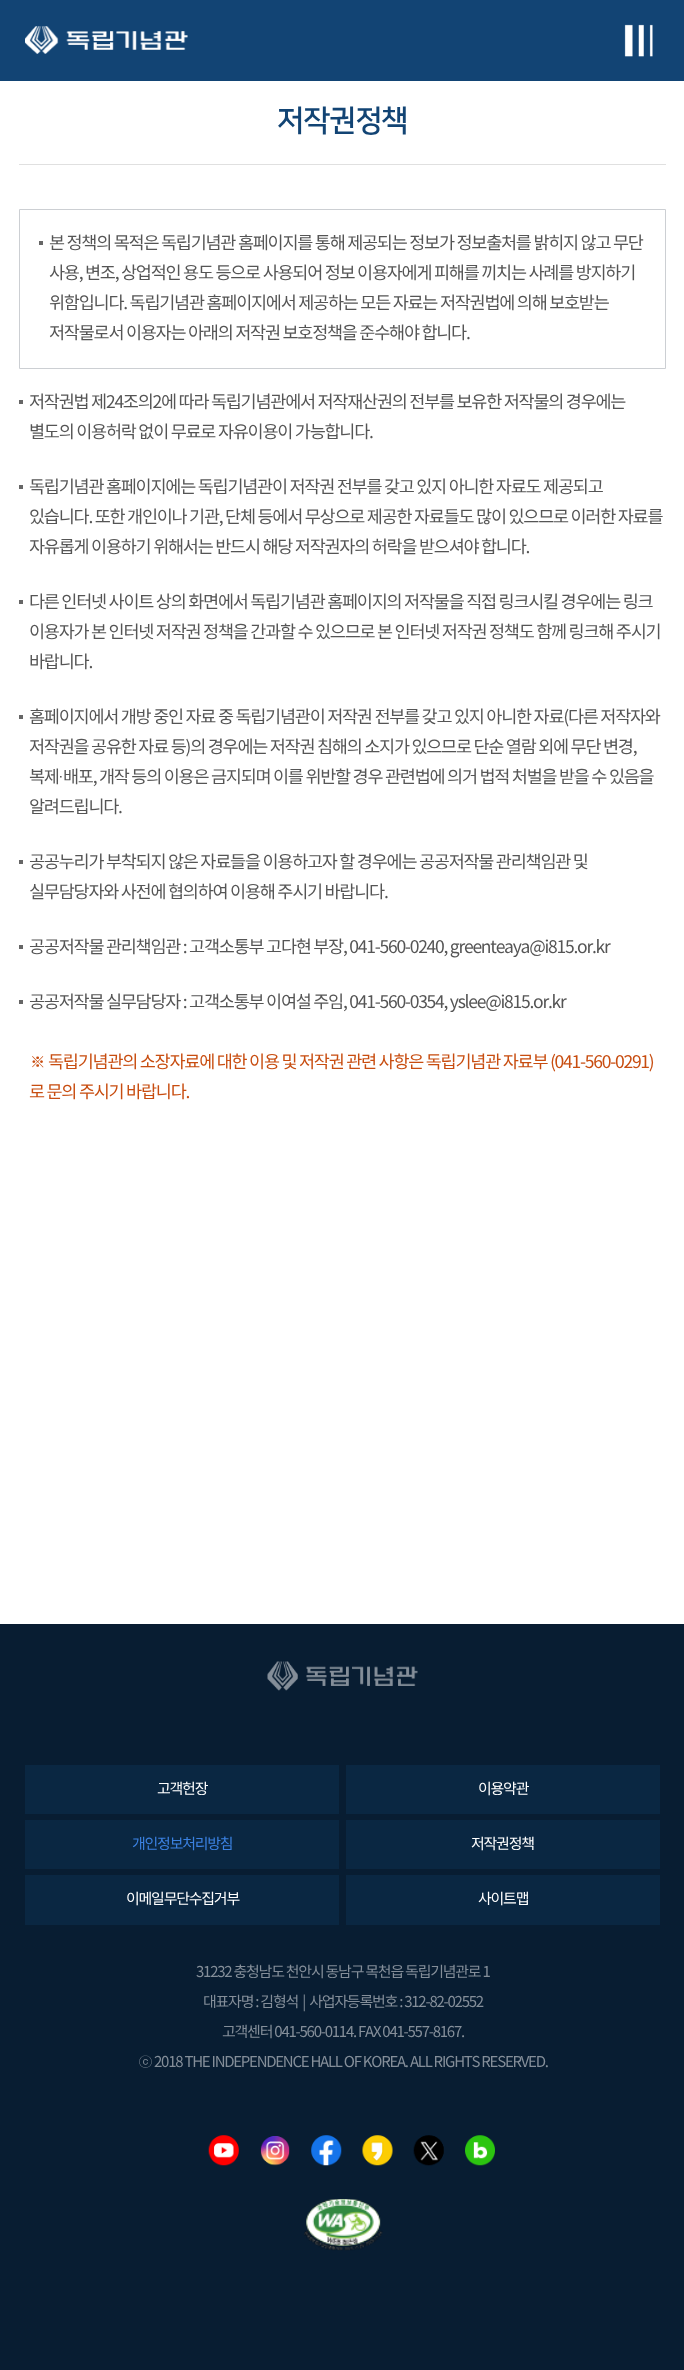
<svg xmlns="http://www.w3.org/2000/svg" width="684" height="2370">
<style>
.a{font:bold 30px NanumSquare;letter-spacing:-1.25px;fill:#124474}
.b{font:17.5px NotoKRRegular;letter-spacing:-1.25px;fill:#555}
.c{font:17.5px Dotum;letter-spacing:-1.25px;fill:#555}
.d{font:17.5px Dotum;letter-spacing:-1.25px;fill:#c84d10}
.e{font:17.5px NotoKRRegular;letter-spacing:-1.25px;fill:#c84d10}
.f{font:15px NotoKRRegular;letter-spacing:-1.25px;fill:#fff}
.g{font:15px NotoKRRegular;letter-spacing:-1.25px;fill:#3b81e1}
.h{font:15px NotoKRRegular;letter-spacing:-1.25px;fill:#848e99}
.i{font:15px Dotum;letter-spacing:-1.25px;fill:#848e99}
</style>
<rect width="100%" height="100%" fill="#fff"/>
<path fill="#124474" d="M0 0h684v81H0z"/>
<image href="1.png" x="25" y="26" width="163" height="28"/>
<image href="2.png" x="624" y="24" width="29" height="33"/>
<path fill="#e0e0e0" d="M19 164h647v1H19z"/>
<path fill="none" stroke="#cccfd3" d="M19.5 209.5h646v159H19.5z"/>
<path fill="#666" d="M39 241h4v4H39z"/>
<path fill="#666" d="M19 400h4v4H19z"/>
<path fill="#666" d="M19 485h4v4H19z"/>
<path fill="#666" d="M19 600h4v4H19z"/>
<path fill="#666" d="M19 715h4v4H19z"/>
<path fill="#666" d="M19 860h4v4H19z"/>
<path fill="#666" d="M19 945h4v4H19z"/>
<path fill="#666" d="M19 1000h4v4H19z"/>
<path fill="#081d32" d="M0 1624h684v746H0z"/>
<image href="3.png" x="267" y="1661" width="151" height="30"/>
<path fill="#0a2742" d="M25 1765h314v49H25z"/>
<path fill="#0a2742" d="M346 1765h314v49H346z"/>
<path fill="#0a2742" d="M25 1820h314v49H25z"/>
<path fill="#0a2742" d="M346 1820h314v49H346z"/>
<path fill="#0a2742" d="M25 1875h314v50H25z"/>
<path fill="#0a2742" d="M346 1875h314v50H346z"/>
<image href="4.png" x="208" y="2135" width="31" height="31"/>
<image href="5.png" x="260" y="2136" width="30" height="30"/>
<image href="6.png" x="311" y="2135" width="31" height="31"/>
<image href="7.png" x="362" y="2135" width="31" height="31"/>
<image href="8.png" x="413" y="2135" width="31" height="31"/>
<image href="9.png" x="465" y="2135" width="30" height="31"/>
<image href="10.png" x="304" y="2199" width="79" height="52"/>
<text class="a" x="277" y="130">저작권정책</text>
<text class="b" x="49" y="249">본 정책의 목적은 독립기념관 홈페이지를 통해 제공되는 정보가 정보출처를 밝히지 않고 무단</text>
<text class="b" x="49" y="279">사용, 변조, 상업적인 용도 등으로 사용되어 정보 이용자에게 피해를 끼치는 사례를 방지하기</text>
<text class="b" x="49" y="309">위함입니다. 독립기념관 홈페이지에서 제공하는 모든 자료는 저작권법에 의해 보호받는</text>
<text class="b" x="49" y="339">저작물로서 이용자는 아래의 저작권 보호정책을 준수해야 합니다.</text>
<text class="b" x="29" y="408">저작권법 제24조의2에 따라 독립기념관에서 저작재산권의 전부를 보유한 저작물의 경우에는</text>
<text class="b" x="29" y="438">별도의 이용허락 없이 무료로 자유이용이 가능합니다.</text>
<text class="b" x="29" y="493">독립기념관 홈페이지에는 독립기념관이 저작권 전부를 갖고 있지 아니한 자료도 제공되고</text>
<text class="b" x="29" y="523">있습니다. 또한 개인이나 기관, 단체 등에서 무상으로 제공한 자료들도 많이 있으므로 이러한 자료를</text>
<text class="b" x="29" y="553">자유롭게 이용하기 위해서는 반드시 해당 저작권자의 허락을 받으셔야 합니다.</text>
<text class="b" x="29" y="608">다른 인터넷 사이트 상의 화면에서 독립기념관 홈페이지의 저작물을 직접 링크시킬 경우에는 링크</text>
<text class="b" x="29" y="638">이용자가 본 인터넷 저작권 정책을 간과할 수 있으므로 본 인터넷 저작권 정책도 함께 링크해 주시기</text>
<text class="b" x="29" y="668">바랍니다.</text>
<text class="b" x="29" y="723">홈페이지에서 개방 중인 자료 중 독립기념관이 저작권 전부를 갖고 있지 아니한 자료(다른 저작자와</text>
<text class="b" x="29" y="753">저작권을 공유한 자료 등)의 경우에는 저작권 침해의 소지가 있으므로 단순 열람 외에 무단 변경,</text>
<text class="b" x="29" y="783">복제</text>
<text class="c" x="58" y="783">·</text>
<text class="b" x="63" y="783">배포, 개작 등의 이용은 금지되며 이를 위반할 경우 관련법에 의거 법적 처벌을 받을 수 있음을</text>
<text class="b" x="29" y="813">알려드립니다.</text>
<text class="b" x="29" y="868">공공누리가 부착되지 않은 자료들을 이용하고자 할 경우에는 공공저작물 관리책임관 및</text>
<text class="b" x="29" y="898">실무담당자와 사전에 협의하여 이용해 주시기 바랍니다.</text>
<text class="b" x="29" y="953">공공저작물 관리책임관 : 고객소통부 고다현 부장, 041-560-0240, greenteaya@i815.or.kr</text>
<text class="b" x="29" y="1008">공공저작물 실무담당자 : 고객소통부 이여설 주임, 041-560-0354, yslee@i815.or.kr</text>
<text class="d" x="29" y="1068">※</text>
<text class="e" x="48" y="1068">독립기념관의 소장자료에 대한 이용 및 저작권 관련 사항은 독립기념관 자료부 (041-560-0291)</text>
<text class="e" x="29" y="1098">로 문의 주시기 바랍니다.</text>
<text class="f" x="157" y="1794">고객헌장</text>
<text class="f" x="478" y="1794">이용약관</text>
<text class="g" x="132" y="1849">개인정보처리방침</text>
<text class="f" x="471" y="1849">저작권정책</text>
<text class="f" x="126" y="1904">이메일무단수집거부</text>
<text class="f" x="478" y="1904">사이트맵</text>
<text class="h" x="196" y="1977">31232 충청남도 천안시 동남구 목천읍 독립기념관로 1</text>
<text class="h" xml:space="preserve" x="203" y="2007">대표자명 : 김형석  |  사업자등록번호 : 312-82-02552</text>
<text class="h" x="222" y="2037">고객센터 041-560-0114. FAX 041-557-8167.</text>
<text class="i" x="138" y="2067">ⓒ</text>
<text class="h" x="154" y="2067">2018 THE INDEPENDENCE HALL OF KOREA. ALL RIGHTS RESERVED.</text>
</svg>
